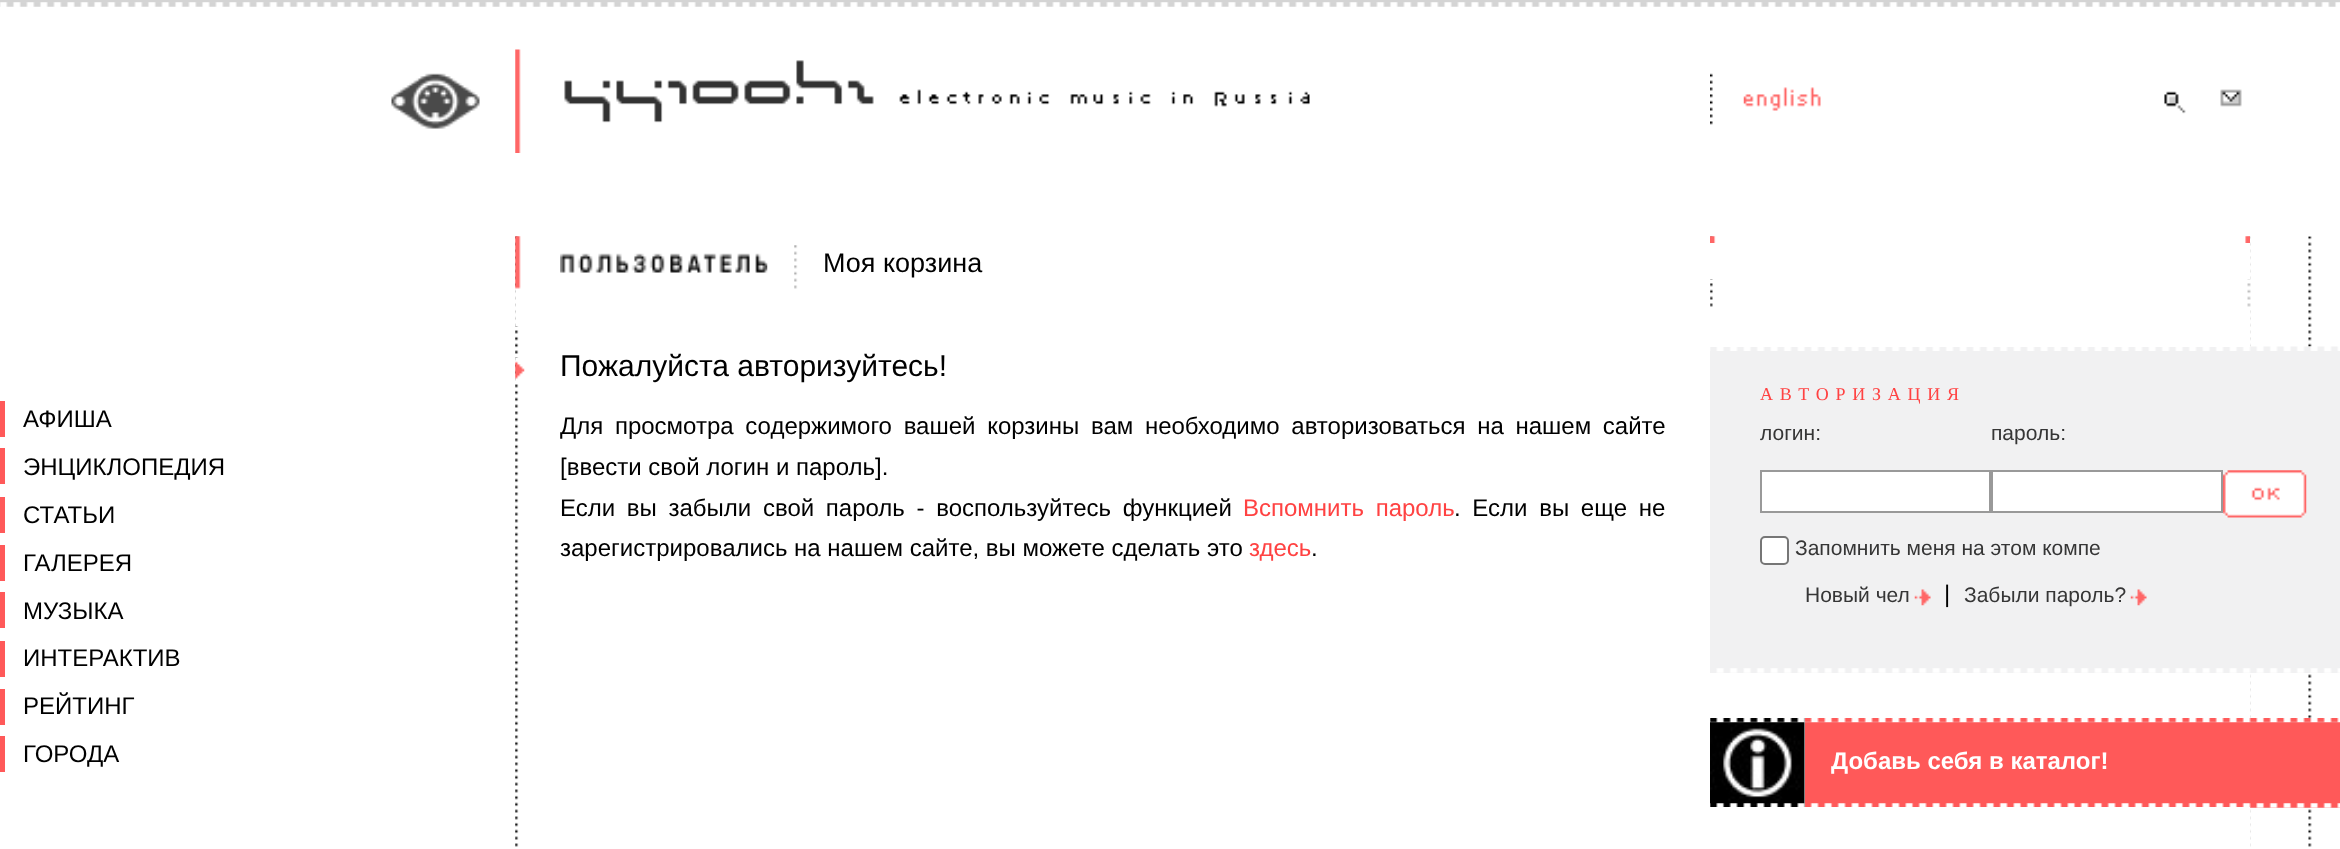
<svg xmlns="http://www.w3.org/2000/svg" width="2340" height="849">
<style>
.a{font:24px Liberation Sans;fill:#000}
.b{font:27px Liberation Sans;fill:#000}
.c{font:30px Liberation Sans;fill:#000}
.d{font:24px Liberation Sans;fill:#ff4242}
.e{font:18px Liberation Serif;letter-spacing:6.75px;fill:#ff4242}
.f{font:21px Liberation Sans;fill:#363636}
.g{font:bold 24px Liberation Sans;fill:#fff}
</style>
<rect width="100%" height="100%" fill="#fff"/>
<path fill="#d4d4d4" d="M0 0h2340v3H0z"/>
<image href="1.png" x="0" y="2" width="2340" height="5"/>
<image href="2.png" x="391" y="73" width="89" height="56"/>
<image href="3.png" x="515" y="49" width="6" height="104"/>
<image href="4.png" x="564" y="60" width="746" height="63"/>
<image href="5.png" x="1710" y="73" width="3" height="52"/>
<image href="6.png" x="1743" y="87" width="78" height="24"/>
<image href="7.png" x="2164" y="91" width="22" height="23"/>
<image href="8.png" x="2220" y="89" width="22" height="18"/>
<path fill="#ff5959" d="M0 401h5v36H0z"/>
<path fill="#ff5959" d="M0 448h5v36H0z"/>
<path fill="#ff5959" d="M0 497h5v36H0z"/>
<path fill="#ff5959" d="M0 545h5v36H0z"/>
<path fill="#ff5959" d="M0 592h5v36H0z"/>
<path fill="#ff5959" d="M0 641h5v36H0z"/>
<path fill="#ff5959" d="M0 689h5v36H0z"/>
<path fill="#ff5959" d="M0 736h5v36H0z"/>
<image href="9.png" x="515" y="567" width="4" height="280"/>
<image href="10.png" x="515" y="236" width="4" height="331"/>
<image href="11.png" x="515" y="236" width="6" height="91"/>
<image href="12.png" x="515" y="357" width="10" height="24"/>
<image href="13.png" x="560" y="253" width="208" height="20"/>
<image href="14.png" x="794" y="245" width="4" height="44"/>
<image href="15.png" x="1710" y="236" width="602" height="611"/>
<image href="16.png" x="1710" y="236" width="540" height="7"/>
<path fill="#fff" d="M1710 243h540v36H1710z"/>
<image href="17.png" x="1710" y="346" width="630" height="5"/>
<path fill="#fff" d="M1710 310h540v37H1710z"/>
<path fill="#f1f1f2" d="M1710 351h630v322H1710z"/>
<path fill="#fff" stroke="#999" stroke-width="2" d="M1761 471h229v41H1761z"/>
<path fill="#fff" stroke="#999" stroke-width="2" d="M1992 471h230v41H1992z"/>
<image href="18.png" x="2223" y="470" width="84" height="48"/>
<rect fill="#fff" stroke="#767676" stroke-width="2" x="1761" y="537" width="27" height="27" rx="4"/>
<image href="19.png" x="1914" y="589" width="17" height="17"/>
<image href="19.png" x="2130" y="589" width="17" height="17"/>
<image href="20.png" x="1716" y="668" width="624" height="5"/>
<image href="21.png" x="1710" y="718" width="95" height="89"/>
<image href="22.png" x="1710" y="718" width="95" height="5"/>
<path fill="#ff5959" d="M1805 718h535v90H1805z"/>
<image href="24.png" x="1804" y="717" width="536" height="6"/>
<path fill="#fff" d="M1710 674h540v44H1710z"/>
<image href="23.png" x="1710" y="803" width="95" height="4"/>
<image href="25.png" x="1804" y="803" width="536" height="5"/>
<path fill="#fff" d="M1710 807h540v40H1710z"/>
<text class="a" x="23" y="427">АФИША</text>
<text class="a" x="23" y="475">ЭНЦИКЛОПЕДИЯ</text>
<text class="a" x="23" y="523">СТАТЬИ</text>
<text class="a" x="23" y="571">ГАЛЕРЕЯ</text>
<text class="a" x="23" y="619">МУЗЫКА</text>
<text class="a" x="23" y="666">ИНТЕРАКТИВ</text>
<text class="a" x="23" y="714">РЕЙТИНГ</text>
<text class="a" x="23" y="762">ГОРОДА</text>
<text class="b" x="823" y="272">Моя корзина</text>
<text class="c" x="560" y="376">Пожалуйста авторизуйтесь!</text>
<text class="a" x="560" y="434" word-spacing="5">Для просмотра содержимого вашей корзины вам необходимо авторизоваться на нашем сайте</text>
<text class="a" x="560" y="475">[ввести свой логин и пароль].</text>
<text class="a" x="560" y="516" word-spacing="5">Если вы забыли свой пароль - воспользуйтесь функцией</text>
<text class="d" x="1243" y="516" word-spacing="5">Вспомнить пароль</text>
<text class="a" x="1454" y="516" word-spacing="5">. Если вы еще не</text>
<text class="a" x="560" y="556">зарегистрировались на нашем сайте, вы можете сделать это</text>
<text class="d" x="1249" y="556">здесь</text>
<text class="a" x="1311" y="556">.</text>
<text class="e" x="1760" y="400">АВТОРИЗАЦИЯ</text>
<text class="f" x="1760" y="440">логин:</text>
<text class="f" x="1991" y="440">пароль:</text>
<text class="f" x="1795" y="555">Запомнить меня на этом компе</text>
<text class="f" x="1805" y="602">Новый чел</text>
<text class="a" x="1944" y="602">|</text>
<text class="f" x="1964" y="602">Забыли пароль?</text>
<text class="g" x="1831" y="769">Добавь себя в каталог!</text>
</svg>
